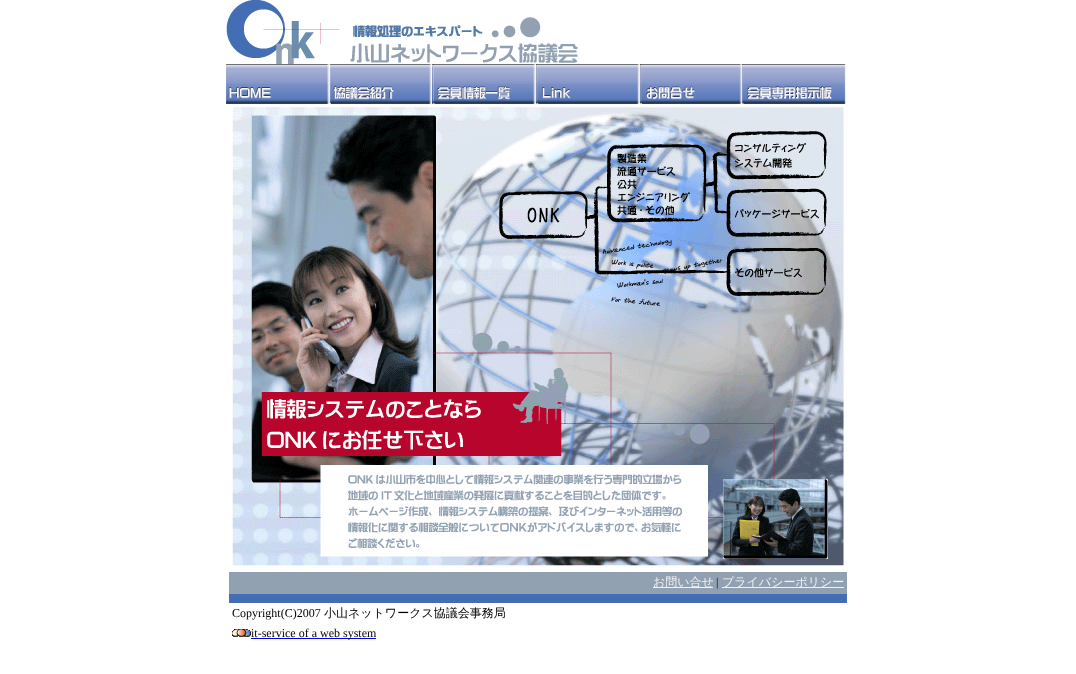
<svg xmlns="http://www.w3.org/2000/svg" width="1076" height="674">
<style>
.a{font:500 12px WenQuanYi Zen Hei;fill:#f1f1f1}
.b{font:12px Liberation Serif;fill:#000}
.c{font:500 12px WenQuanYi Zen Hei;fill:#000}
</style>
<rect width="100%" height="100%" fill="#fff"/>
<image href="1.png" x="226" y="0" width="352" height="64"/>
<image href="2.png" x="226" y="64" width="104" height="40"/>
<image href="3.png" x="330" y="64" width="102" height="40"/>
<image href="4.png" x="432" y="64" width="104" height="40"/>
<image href="5.png" x="536" y="64" width="104" height="40"/>
<image href="6.png" x="640" y="64" width="102" height="40"/>
<image href="7.png" x="742" y="64" width="104" height="40"/>
<image href="8.png" x="232" y="107" width="612" height="459"/>
<path fill="#92a1b1" d="M229 572h618v22H229z"/>
<path fill="#f1f1f1" d="M653 587h60v1H653z"/>
<path fill="#f1f1f1" d="M722 587h122v1H722z"/>
<path fill="#446eb3" d="M229 594h618v9H229z"/>
<image href="9.png" x="232" y="629" width="19" height="8"/>
<path fill="#00e" d="M251 638h125v1H251z"/>
<text class="a" x="653" y="586">お問い合せ</text>
<text class="b" x="716" y="586">|</text>
<text class="a" x="722" y="586">プライバシーポリシー</text>
<text class="b" x="232" y="617">Copyright(C)2007</text>
<text class="c" x="324" y="617">小山ネットワークス協議会事務局</text>
<text class="b" x="251" y="637">it-service of a web system</text>
</svg>
